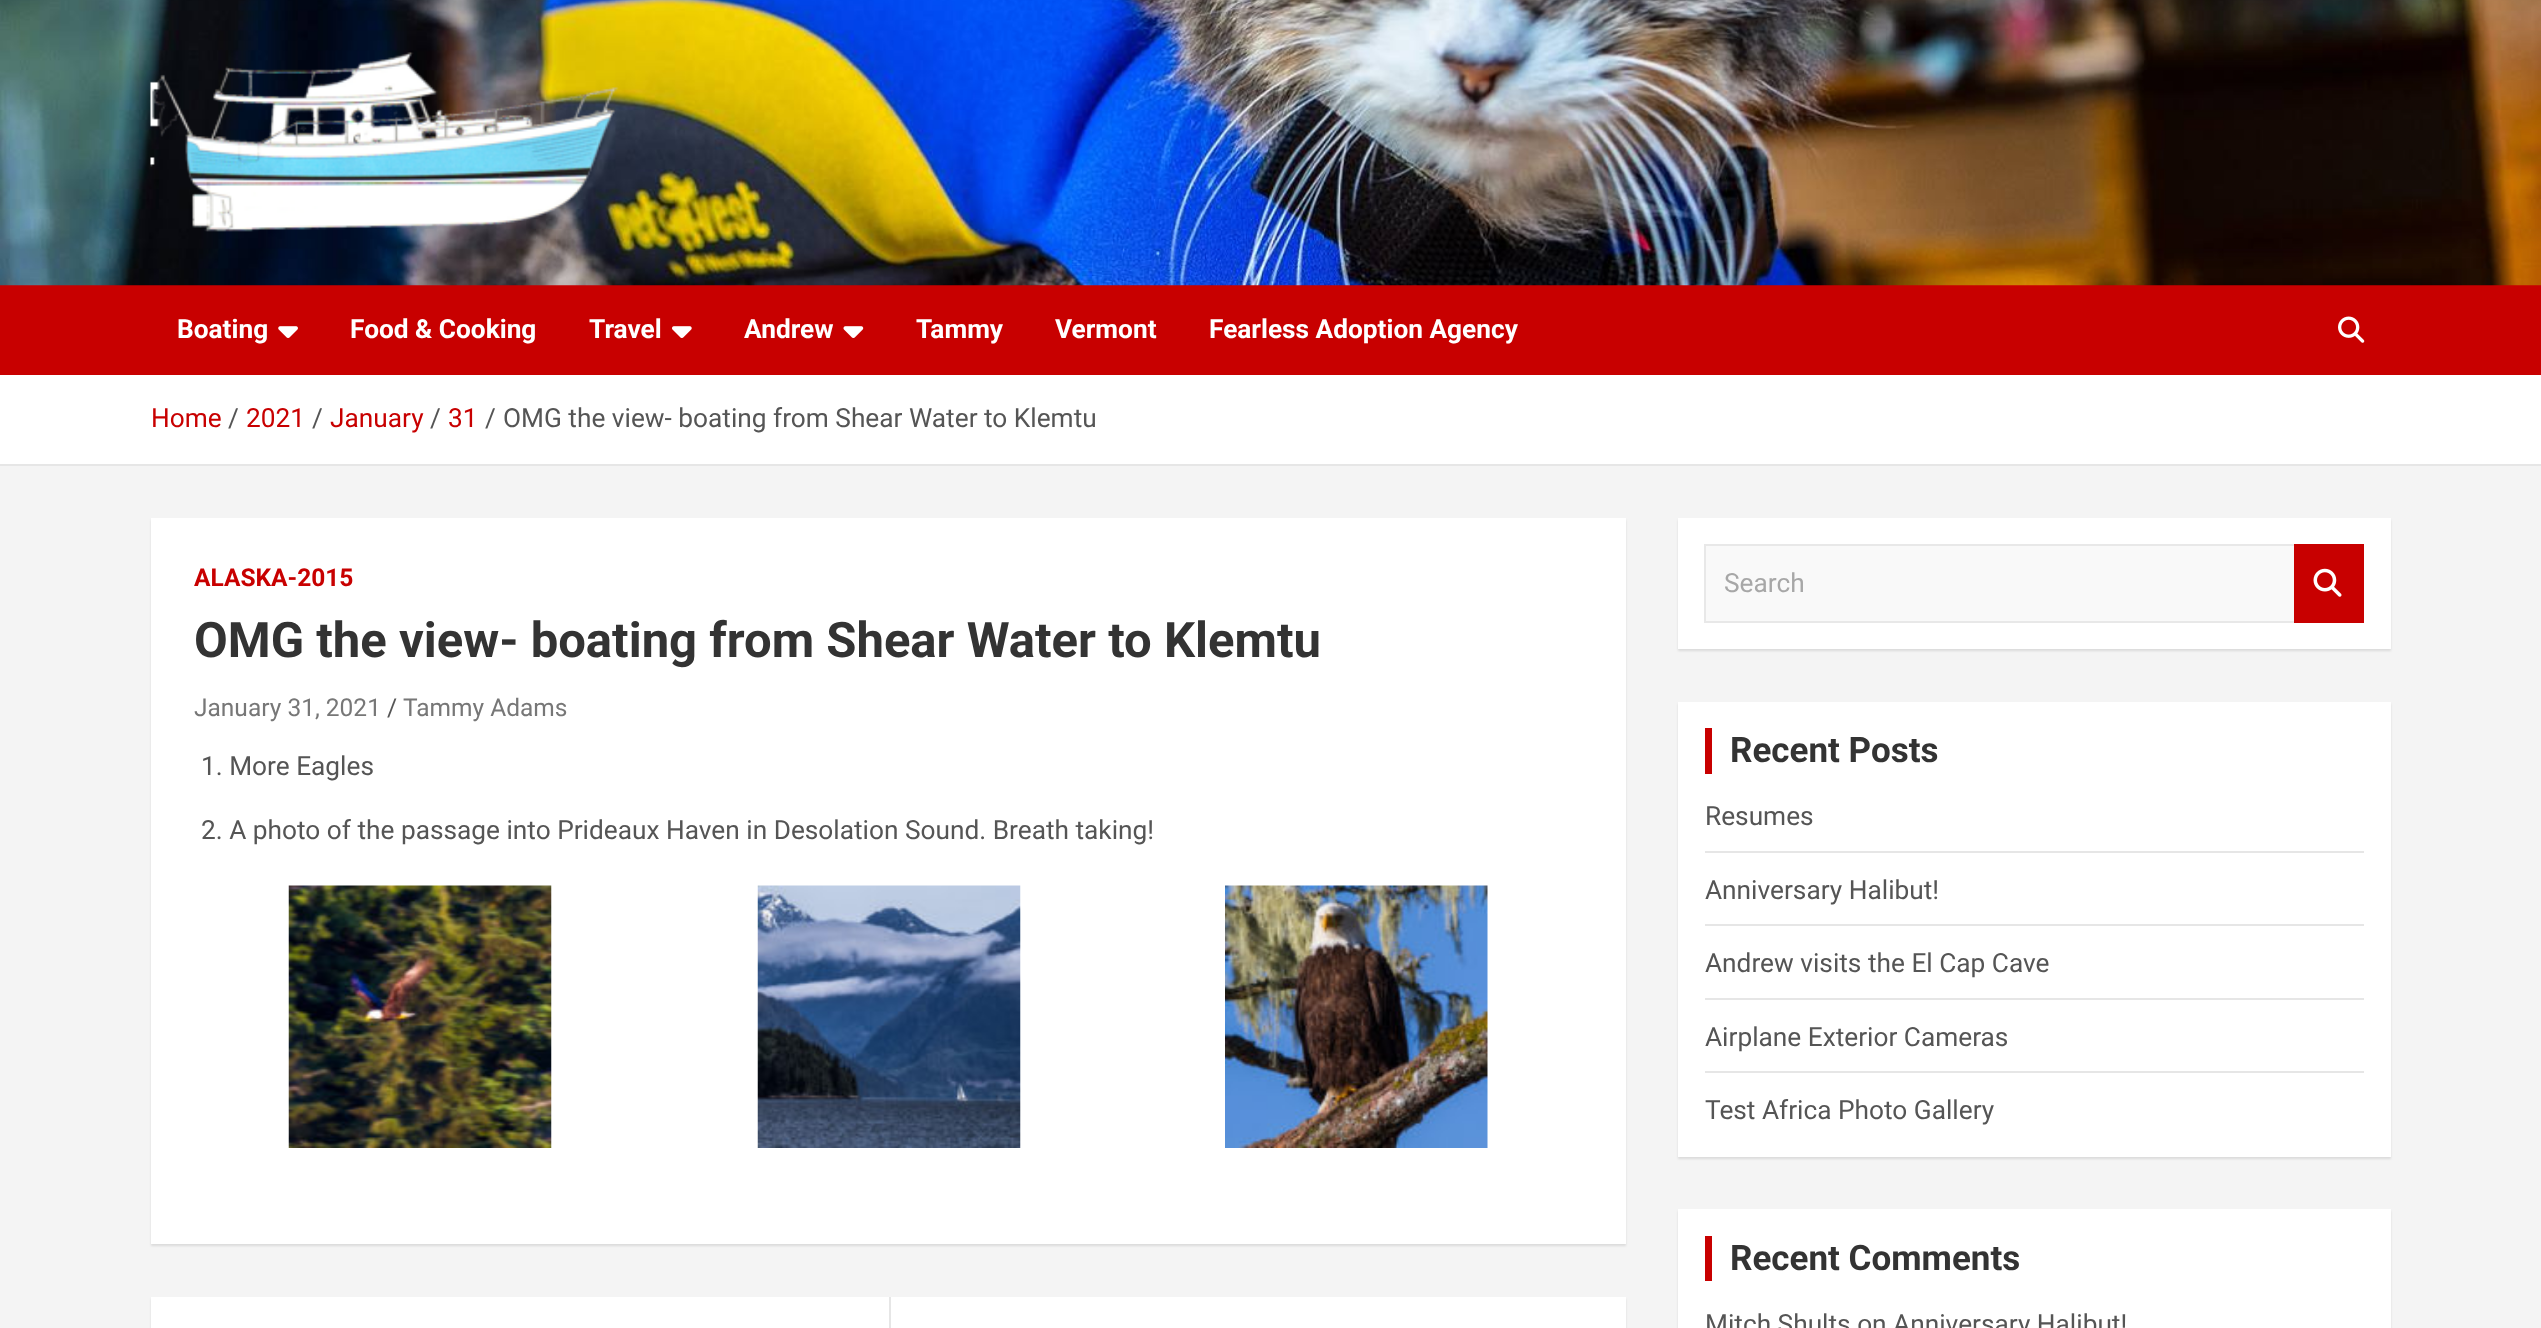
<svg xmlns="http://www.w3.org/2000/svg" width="2541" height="1328">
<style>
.a{font:bold 26.25px Roboto;fill:#fff}
.b{font:26.25px Roboto;fill:#c80000}
.c{font:26.25px Roboto;fill:#555}
.d{font:bold 24.5px Roboto;fill:#c80000}
.e{font:bold 49px Roboto;fill:#333}
.f{font:24.5px Roboto;fill:#777}
.g{font:24.5px Roboto;fill:#555}
.h{font:26.25px Roboto;fill:#a7a7a7}
.i{font:bold 35px Roboto;fill:#333}
</style>
<rect width="100%" height="100%" fill="#f4f4f4"/>
<path fill="#c80000" d="M0 285h2541v90H0z"/>
<image href="1.png" x="0" y="0" width="2541" height="286"/>
<image href="2.png" x="150" y="52" width="469" height="180"/>
<image href="3.png" x="278" y="326" width="20" height="12"/>
<image href="4.png" x="672" y="326" width="20" height="12"/>
<image href="5.png" x="843" y="326" width="21" height="12"/>
<image href="6.png" x="2338" y="316" width="27" height="27"/>
<path fill="#fff" d="M0 375h2541v89H0z"/>
<path fill="#e6e6e6" d="M0 464h2541v2H0z"/>
<path fill="#0000001a" filter="blur(1px)" d="M151 520h1475v726H151z"/>
<path fill="#fff" d="M151 518h1475v726H151z"/>
<image href="7.png" x="288" y="885" width="264" height="263"/>
<image href="8.png" x="757" y="885" width="264" height="263"/>
<image href="9.png" x="1225" y="885" width="263" height="263"/>
<path fill="#0000001a" filter="blur(1px)" d="M151 1299h1475v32H151z"/>
<path fill="#fff" d="M151 1297h1475v31H151z"/>
<path fill="#e6e6e6" d="M889 1297h2v31H889z"/>
<path fill="#0000001a" filter="blur(1px)" d="M1678 520h713v131H1678z"/>
<path fill="#fff" d="M1678 518h713v131H1678z"/>
<path fill="#f9f9f9" d="M1706 546h588v75H1706z"/>
<path fill="#e8e8e8" d="M1704 544h590v2h-588z"/>
<path fill="#e8e8e8" d="M2294 623h-590l2-2h588z"/>
<path fill="#00000017" d="M1704 623v-79l2 2v75z"/>
<path fill="#c80000" d="M2294 544h70v79H2294z"/>
<image href="10.png" x="2313" y="568" width="29" height="29"/>
<path fill="#0000001a" filter="blur(1px)" d="M1678 704h713v455H1678z"/>
<path fill="#fff" d="M1678 702h713v455H1678z"/>
<path fill="#c80000" d="M1705 728h7v46H1705z"/>
<path fill="#e6e6e6" d="M1705 851h659v2H1705z"/>
<path fill="#e6e6e6" d="M1705 924h659v2H1705z"/>
<path fill="#e6e6e6" d="M1705 998h659v2H1705z"/>
<path fill="#e6e6e6" d="M1705 1071h659v2H1705z"/>
<path fill="#0000001a" filter="blur(1px)" d="M1678 1211h713v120H1678z"/>
<path fill="#fff" d="M1678 1209h713v119H1678z"/>
<path fill="#c80000" d="M1705 1236h7v45H1705z"/>
<text class="a" x="177" y="338">Boating</text>
<text class="a" x="350" y="338">Food &amp; Cooking</text>
<text class="a" x="589" y="338">Travel</text>
<text class="a" x="744" y="338">Andrew</text>
<text class="a" x="916" y="338">Tammy</text>
<text class="a" x="1055" y="338">Vermont</text>
<text class="a" x="1209" y="338">Fearless Adoption Agency</text>
<text class="b" x="151" y="427">Home</text>
<text class="c" x="228" y="427">/</text>
<text class="b" x="246" y="427">2021</text>
<text class="c" x="312" y="427">/</text>
<text class="b" x="330" y="427">January</text>
<text class="c" x="430" y="427">/</text>
<text class="b" x="448" y="427">31</text>
<text class="c" x="485" y="427">/</text>
<text class="c" x="503" y="427">OMG the view- boating from Shear Water to Klemtu</text>
<text class="d" x="194" y="586">ALASKA-2015</text>
<text class="e" x="194" y="657">OMG the view- boating from Shear Water to Klemtu</text>
<text class="f" x="194" y="716">January 31, 2021</text>
<text class="g" x="387" y="716">/</text>
<text class="f" x="403" y="716">Tammy Adams</text>
<text class="c" x="201" y="775">1. More Eagles</text>
<text class="c" x="201" y="839">2. A photo of the passage into Prideaux Haven in Desolation Sound. Breath taking!</text>
<text class="h" x="1724" y="592">Search</text>
<text class="i" x="1730" y="762">Recent Posts</text>
<text class="c" x="1705" y="825">Resumes</text>
<text class="c" x="1705" y="899">Anniversary Halibut!</text>
<text class="c" x="1705" y="972">Andrew visits the El Cap Cave</text>
<text class="c" x="1705" y="1046">Airplane Exterior Cameras</text>
<text class="c" x="1705" y="1119">Test Africa Photo Gallery</text>
<text class="i" x="1730" y="1270">Recent Comments</text>
<text class="c" x="1705" y="1333">Mitch Shults on Anniversary Halibut!</text>
</svg>
